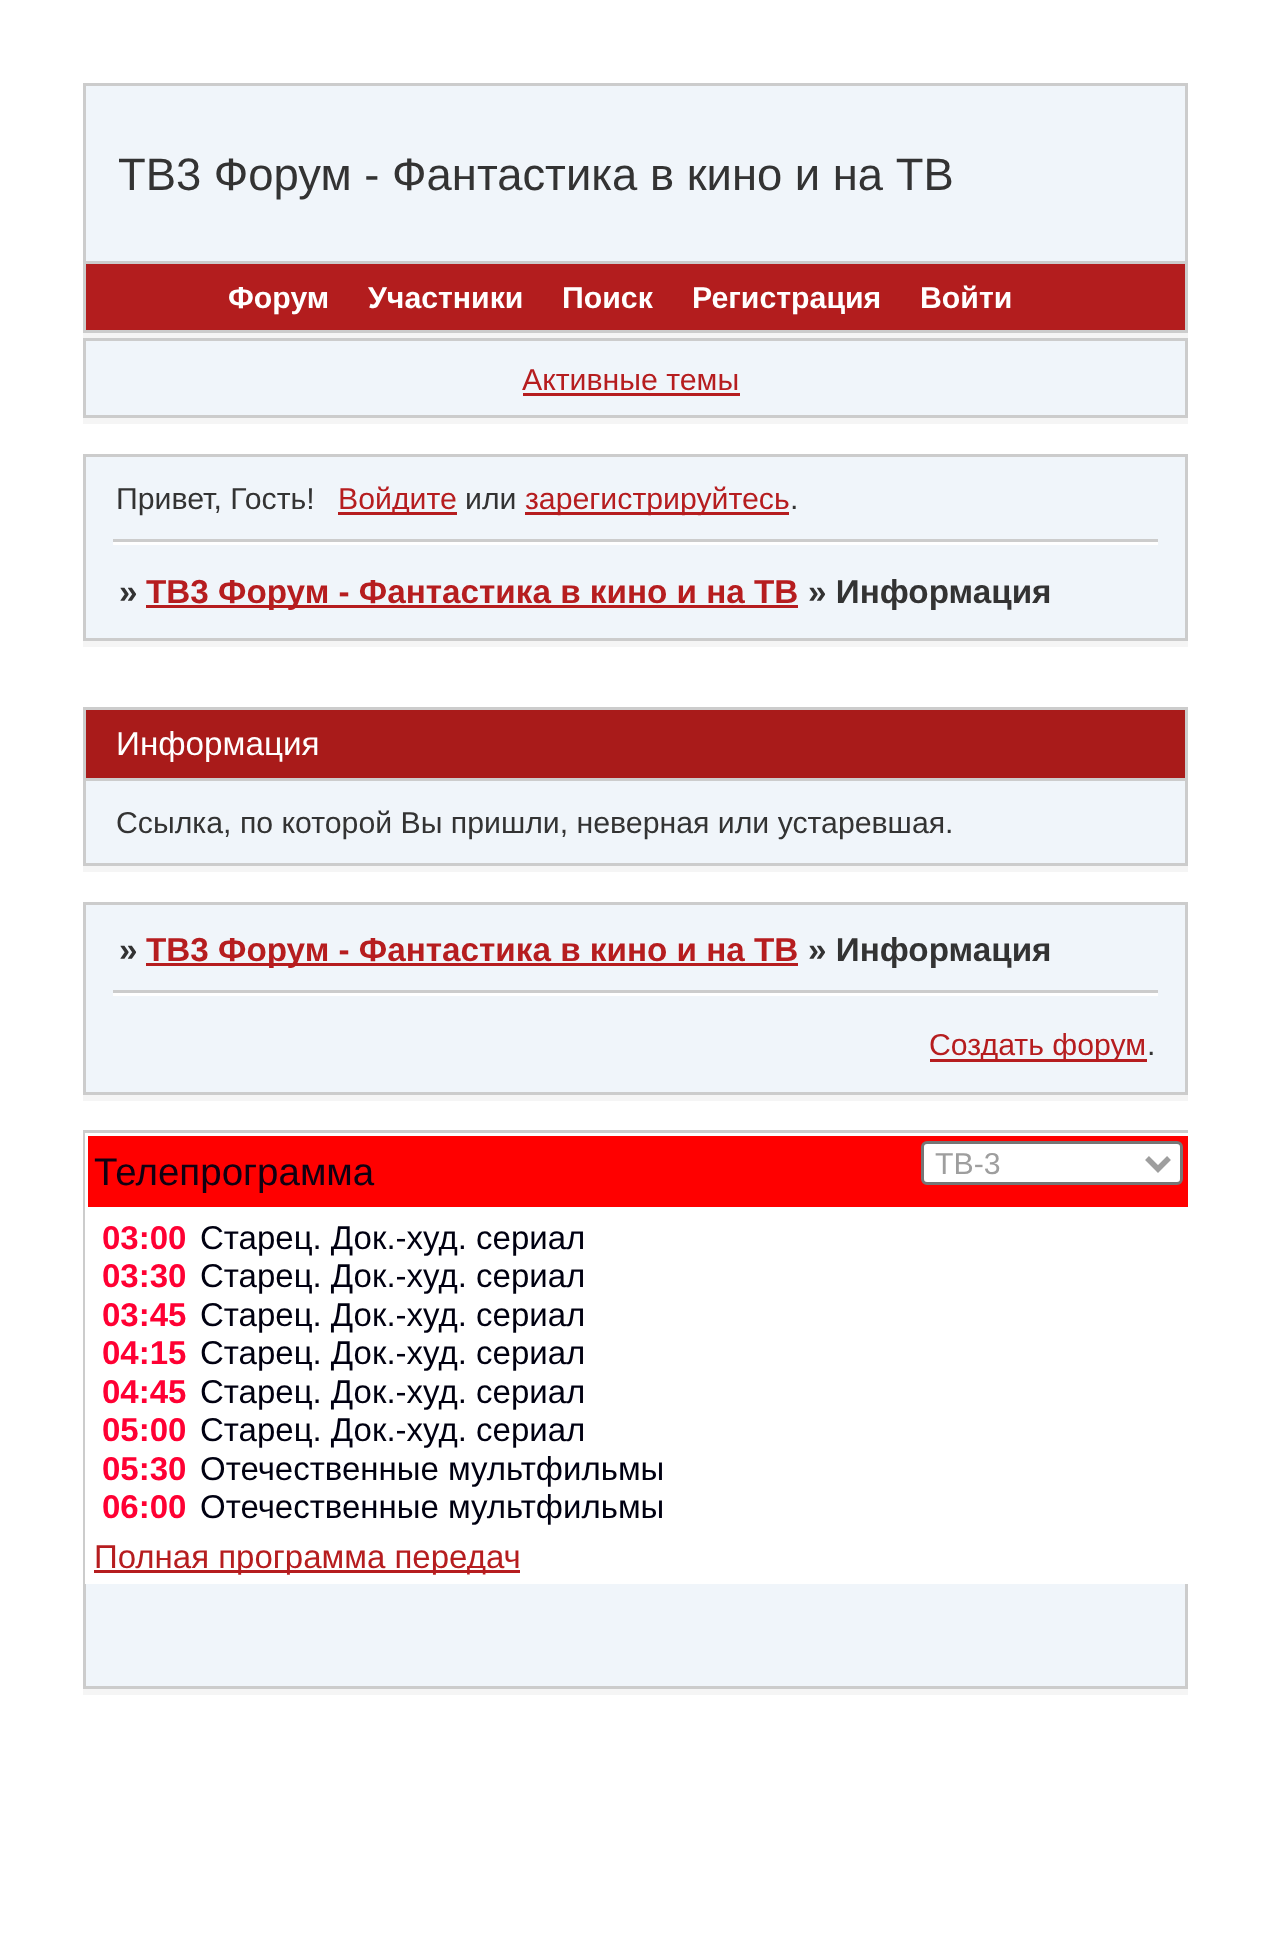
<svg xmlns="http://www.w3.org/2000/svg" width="1268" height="1942">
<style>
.a{font:45.4px Liberation Sans;fill:#333}
.b{font:bold 30.25px Liberation Sans;fill:#fff}
.c{font:30.25px Liberation Sans;fill:#b61d1f}
.d{font:30.25px Liberation Sans;fill:#333}
.e{font:bold 33.25px Liberation Sans;fill:#333}
.f{font:bold 33.25px Liberation Sans;fill:#b61d1f}
.g{font:33.25px Liberation Sans;fill:#fff}
.h{font:38.5px Liberation Sans;fill:#101}
.i{font:30.25px Liberation Sans;fill:#9e9e9e}
.j{font:bold 33px Liberation Sans;fill:#f03}
.k{font:33px Liberation Sans;fill:#001}
.l{font:33px Liberation Sans;fill:#b61d1f}
</style>
<rect width="100%" height="100%" fill="#fff"/>
<path fill="#f0f5fa" d="M86 86h1099v175H86z"/>
<path fill="#ccc" d="M83 83h1105v3H83z"/>
<path fill="#ccc" d="M1185 83h3v178H1185z"/>
<path fill="#ccc" d="M83 83h3v178H83z"/>
<path fill="#f5f5f5" d="M83 333h1105v5H83z"/>
<path fill="#b31d1e" stroke="#ccc" stroke-width="3" d="M84.5 262.5h1102v69H84.5z"/>
<path fill="#f5f5f5" d="M83 418h1105v6H83z"/>
<path fill="#f0f5fa" stroke="#ccc" stroke-width="3" d="M84.5 339.5h1102v77H84.5z"/>
<path fill="#b61d1f" d="M523 393h217v3H523z"/>
<path fill="#f0f5fa" d="M86 457h1099v181H86z"/>
<path fill="#ccc" d="M83 454h1105v3H83z"/>
<path fill="#ccc" d="M1185 454h3v187H1185z"/>
<path fill="#ccc" d="M83 454h3v91H83z"/>
<path fill="#b61d1f" d="M338 512h119v3H338z"/>
<path fill="#b61d1f" d="M525 512h264v3H525z"/>
<path fill="#ccc" d="M113 539h1045v3H113z"/>
<path fill="#fff" d="M113 542h1045v3H113z"/>
<path fill="#f5f5f5" d="M83 641h1105v6H83z"/>
<path fill="#ccc" d="M83 638h1105v3H83z"/>
<path fill="#ccc" d="M83 539h3v102H83z"/>
<path fill="#b61d1f" d="M146 605h652v3H146z"/>
<path fill="#a91b1a" d="M86 710h1099v68H86z"/>
<path fill="#ccc" d="M83 707h1105v3H83z"/>
<path fill="#ccc" d="M1185 707h3v71H1185z"/>
<path fill="#ccc" d="M83 707h3v71H83z"/>
<path fill="#f5f5f5" d="M83 866h1105v6H83z"/>
<path fill="#f0f5fa" stroke="#ccc" stroke-width="3" d="M84.5 779.5h1102v85H84.5z"/>
<path fill="#ccc" d="M83 902h1105v3H83z"/>
<path fill="#ccc" d="M1185 990h3v105H1185z"/>
<path fill="#ccc" d="M1185 902h3v94H1185z"/>
<path fill="#ccc" d="M83 1092h1105v3H83z"/>
<path fill="#ccc" d="M83 990h3v105H83z"/>
<path fill="#ccc" d="M83 902h3v94H83z"/>
<path fill="#f0f5fa" d="M86 905h1099v187H86z"/>
<path fill="#b61d1f" d="M146 963h652v3H146z"/>
<path fill="#ccc" d="M113 990h1045v3H113z"/>
<path fill="#fff" d="M113 993h1045v3H113z"/>
<path fill="#f5f5f5" d="M83 1095h1105v6H83z"/>
<path fill="#b61d1f" d="M930 1059h217v3H930z"/>
<path fill="#f5f5f5" d="M83 1689h1105v6H83z"/>
<path fill="#f0f5fa" d="M86 1584h1099v102H86z"/>
<path fill="none" stroke="#ccc" stroke-width="3" d="M84.5 1131.5h1102v556H84.5z"/>
<path fill="#fff" d="M85 1133h1103v451H85z"/>
<path fill="#f00" d="M88 1136h1100v71H88z"/>
<rect fill="#fff" stroke="#767676" stroke-width="3" x="922.5" y="1142.5" width="259" height="41" rx="4.5"/>
<path fill="none" stroke="#9e9e9e" stroke-width="5.5" d="M1147 1158l11 11l11-11"/>
<path fill="#b61d1f" d="M94 1570h426v3H94z"/>
<text class="a" x="118" y="190">ТВ3 Форум - Фантастика в кино и на ТВ</text>
<text class="b" x="228" y="308">Форум</text>
<text class="b" x="368" y="308">Участники</text>
<text class="b" x="562" y="308">Поиск</text>
<text class="b" x="692" y="308">Регистрация</text>
<text class="b" x="920" y="308">Войти</text>
<text class="c" x="522" y="390">Активные темы</text>
<text class="d" x="116" y="509">Привет, Гость!</text>
<text class="c" x="338" y="509">Войдите</text>
<text class="d" x="465" y="509">или</text>
<text class="c" x="525" y="509">зарегистрируйтесь</text>
<text class="d" x="790" y="509">.</text>
<text class="e" x="119" y="603">»</text>
<text class="f" x="146" y="603">ТВ3 Форум - Фантастика в кино и на ТВ</text>
<text class="e" x="808" y="603">» Информация</text>
<text class="g" x="116" y="755">Информация</text>
<text class="d" x="116" y="833">Ссылка, по которой Вы пришли, неверная или устаревшая.</text>
<text class="e" x="119" y="961">»</text>
<text class="f" x="146" y="961">ТВ3 Форум - Фантастика в кино и на ТВ</text>
<text class="e" x="808" y="961">» Информация</text>
<text class="c" x="929" y="1055">Создать форум</text>
<text class="d" x="1147" y="1055">.</text>
<text class="h" x="94" y="1185">Телепрограмма</text>
<text class="i" x="935" y="1174">ТВ-3</text>
<text class="j" x="102" y="1249">03:00</text>
<text class="k" x="200" y="1249">Старец. Док.-худ. сериал</text>
<text class="j" x="102" y="1287">03:30</text>
<text class="k" x="200" y="1287">Старец. Док.-худ. сериал</text>
<text class="j" x="102" y="1326">03:45</text>
<text class="k" x="200" y="1326">Старец. Док.-худ. сериал</text>
<text class="j" x="102" y="1364">04:15</text>
<text class="k" x="200" y="1364">Старец. Док.-худ. сериал</text>
<text class="j" x="102" y="1403">04:45</text>
<text class="k" x="200" y="1403">Старец. Док.-худ. сериал</text>
<text class="j" x="102" y="1441">05:00</text>
<text class="k" x="200" y="1441">Старец. Док.-худ. сериал</text>
<text class="j" x="102" y="1480">05:30</text>
<text class="k" x="200" y="1480">Отечественные мультфильмы</text>
<text class="j" x="102" y="1518">06:00</text>
<text class="k" x="200" y="1518">Отечественные мультфильмы</text>
<text class="l" x="94" y="1568">Полная программа передач</text>
</svg>
